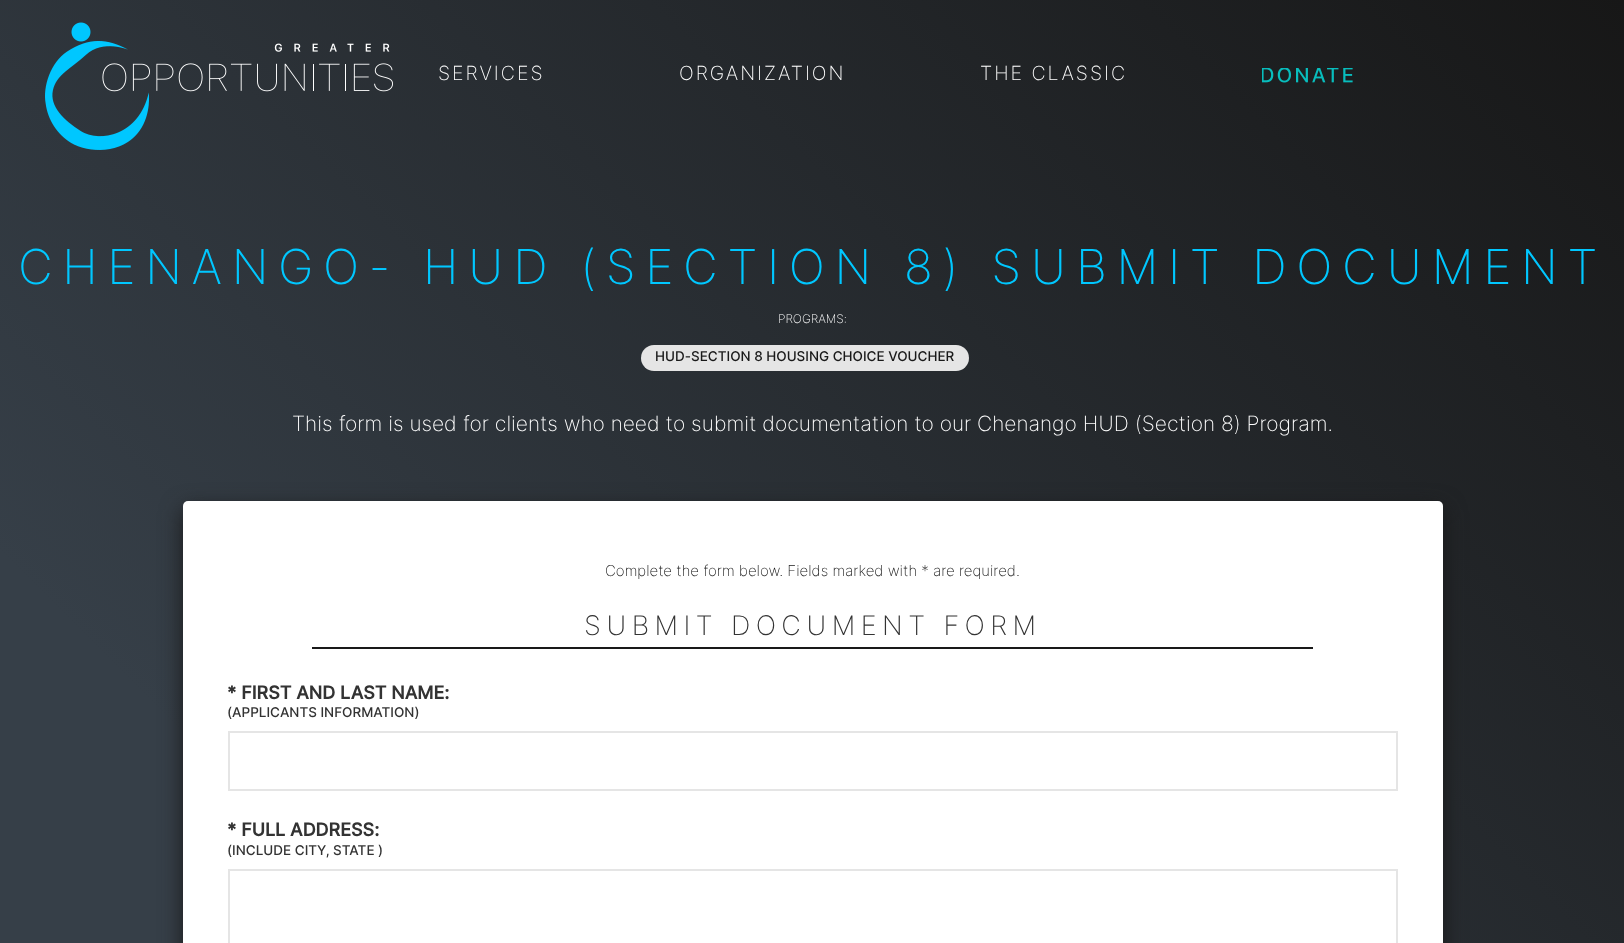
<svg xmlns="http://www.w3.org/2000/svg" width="1624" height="943">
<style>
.a{font:200 19.5px Inter;letter-spacing:2px;fill:#fff}
.b{font:200 48px Inter;letter-spacing:9.6px;fill:#00c7ff}
.c{font:200 12px Inter;fill:#fff}
.d{font:500 13.5px Inter;fill:#191919}
.e{font:200 21px Inter;fill:#fff}
.f{font:200 15px Inter;fill:#191919}
.g{font:200 27px Inter;letter-spacing:5.4px;fill:#333}
.h{font:bold 18px Inter;fill:#333}
.i{font:500 13.5px Inter;fill:#333}
</style>
<defs>
<linearGradient id="g1" gradientUnits="userSpaceOnUse" x1="-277" y1="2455" x2="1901" y2="277"><stop offset="0.5" stop-color="#363f48"/><stop offset="1" stop-color="#171717"/></linearGradient>
</defs>
<rect width="100%" height="100%" fill="#fff"/>
<path fill="url(#g1)" d="M0 0h1624v943H0z"/>
<image href="1.png" x="45" y="22" width="348" height="128"/>
<image href="2.png" x="1262" y="68" width="91" height="15"/>
<rect fill="#e5e5e5" x="641" y="345" width="328" height="26" rx="13"/>
<rect fill="#191919" filter="blur(11px)" x="183" y="509" width="1260" height="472" rx="5"/>
<rect fill="#fff" x="183" y="501" width="1260" height="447" rx="5"/>
<path fill="#191919" d="M312 647h1001v2H312z"/>
<path fill="none" stroke="#e5e5e5" stroke-width="2" d="M229 732h1168v58H229z"/>
<path fill="none" stroke="#e5e5e5" stroke-width="2" d="M229 870h1168v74H229z"/>
<text class="a" x="438" y="80">SERVICES</text>
<text class="a" x="679" y="80">ORGANIZATION</text>
<text class="a" x="980" y="80">THE CLASSIC</text>
<text class="b" x="18" y="284">CHENANGO- HUD (SECTION 8) SUBMIT DOCUMENT</text>
<text class="c" x="778" y="323">PROGRAMS:</text>
<text class="d" x="655" y="361">HUD-SECTION 8 HOUSING CHOICE VOUCHER</text>
<text class="e" x="292" y="431">This form is used for clients who need to submit documentation to our Chenango HUD (Section 8) Program.</text>
<text class="f" x="605" y="576">Complete the form below. Fields marked with * are required.</text>
<text class="g" x="584" y="635">SUBMIT DOCUMENT FORM</text>
<text class="h" x="227" y="699">* FIRST AND LAST NAME:</text>
<text class="i" x="227" y="717">(APPLICANTS INFORMATION)</text>
<text class="h" x="227" y="836">* FULL ADDRESS:</text>
<text class="i" x="227" y="855">(INCLUDE CITY, STATE )</text>
</svg>
